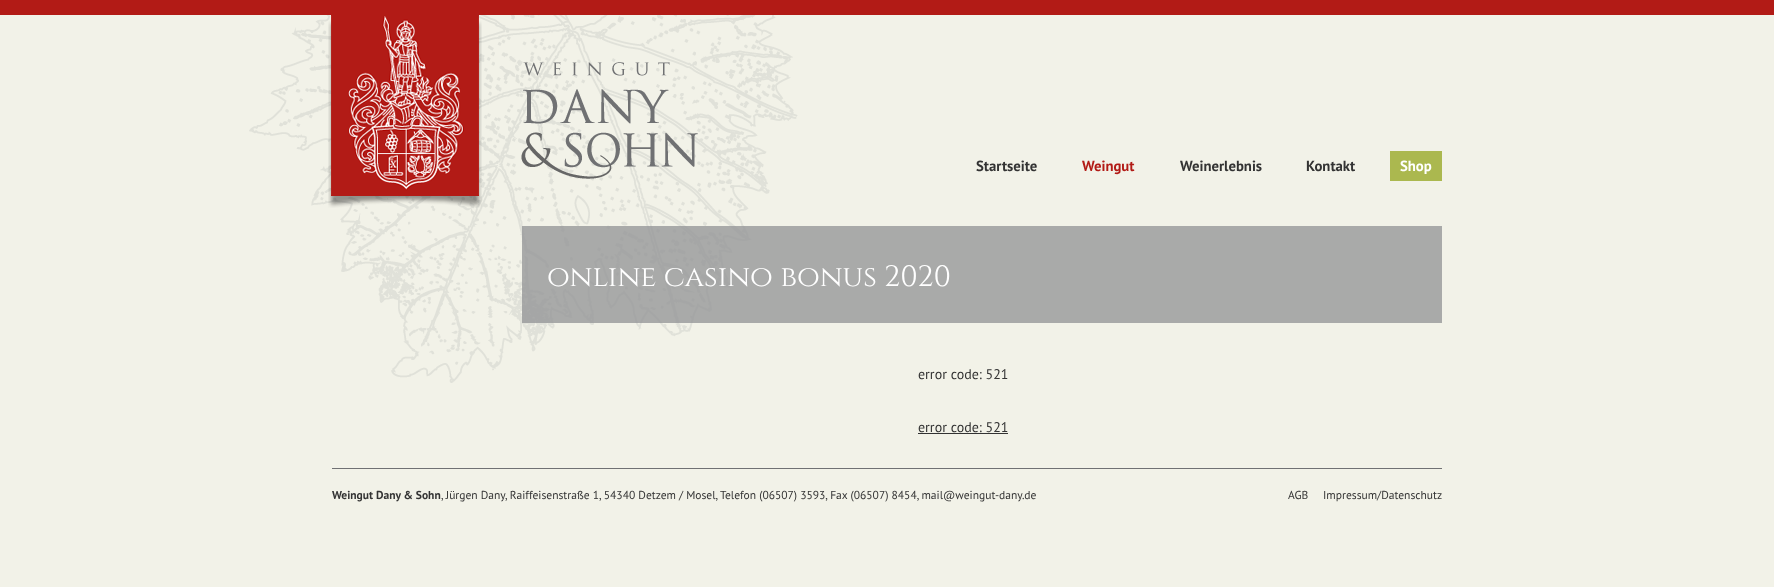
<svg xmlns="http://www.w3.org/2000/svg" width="1774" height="587">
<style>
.a{font:bold 14.75px PT Sans;fill:#333}
.b{font:bold 14.75px PT Sans;fill:#b21b16}
.c{font:bold 14.75px PT Sans;fill:#fff}
.d{font:29.4px Cinzel;fill:#fff}
.e{font:14px PT Sans;fill:#333}
.f{font:bold 11.55px PT Sans;fill:#333}
.g{font:11.55px PT Sans;fill:#333}
</style>
<rect width="100%" height="100%" fill="#f2f2e8"/>
<path fill="#b21b16" d="M0 0h1774v15H0z"/>
<image href="1.png" x="249" y="15" width="549" height="368"/>
<image href="2.png" x="328" y="15" width="154" height="193"/>
<image href="3.png" x="521" y="62" width="177" height="117"/>
<path fill="#abb84f" d="M1390 151h52v30H1390z"/>
<path fill="#969799cc" d="M522 226h920v97H522z"/>
<path fill="#333" d="M918 433h90v1H918z"/>
<path fill="#707173" d="M332 468h1110v1H332z"/>
<text class="a" x="976" y="171">Startseite</text>
<text class="b" x="1082" y="171">Weingut</text>
<text class="a" x="1180" y="171">Weinerlebnis</text>
<text class="a" x="1306" y="171">Kontakt</text>
<text class="c" x="1400" y="171">Shop</text>
<text class="d" x="547" y="286">online casino bonus 2020</text>
<text class="e" x="918" y="379">error code: 521</text>
<text class="e" x="918" y="432">error code: 521</text>
<text class="f" x="332" y="499">Weingut Dany &amp; Sohn</text>
<text class="g" x="441" y="499">, Jürgen Dany, Raiffeisenstraße 1, 54340 Detzem / Mosel, Telefon (06507) 3593, Fax (06507) 8454, mail@weingut-dany.de</text>
<text class="g" x="1288" y="499">AGB</text>
<text class="g" x="1323" y="499">Impressum/Datenschutz</text>
</svg>
